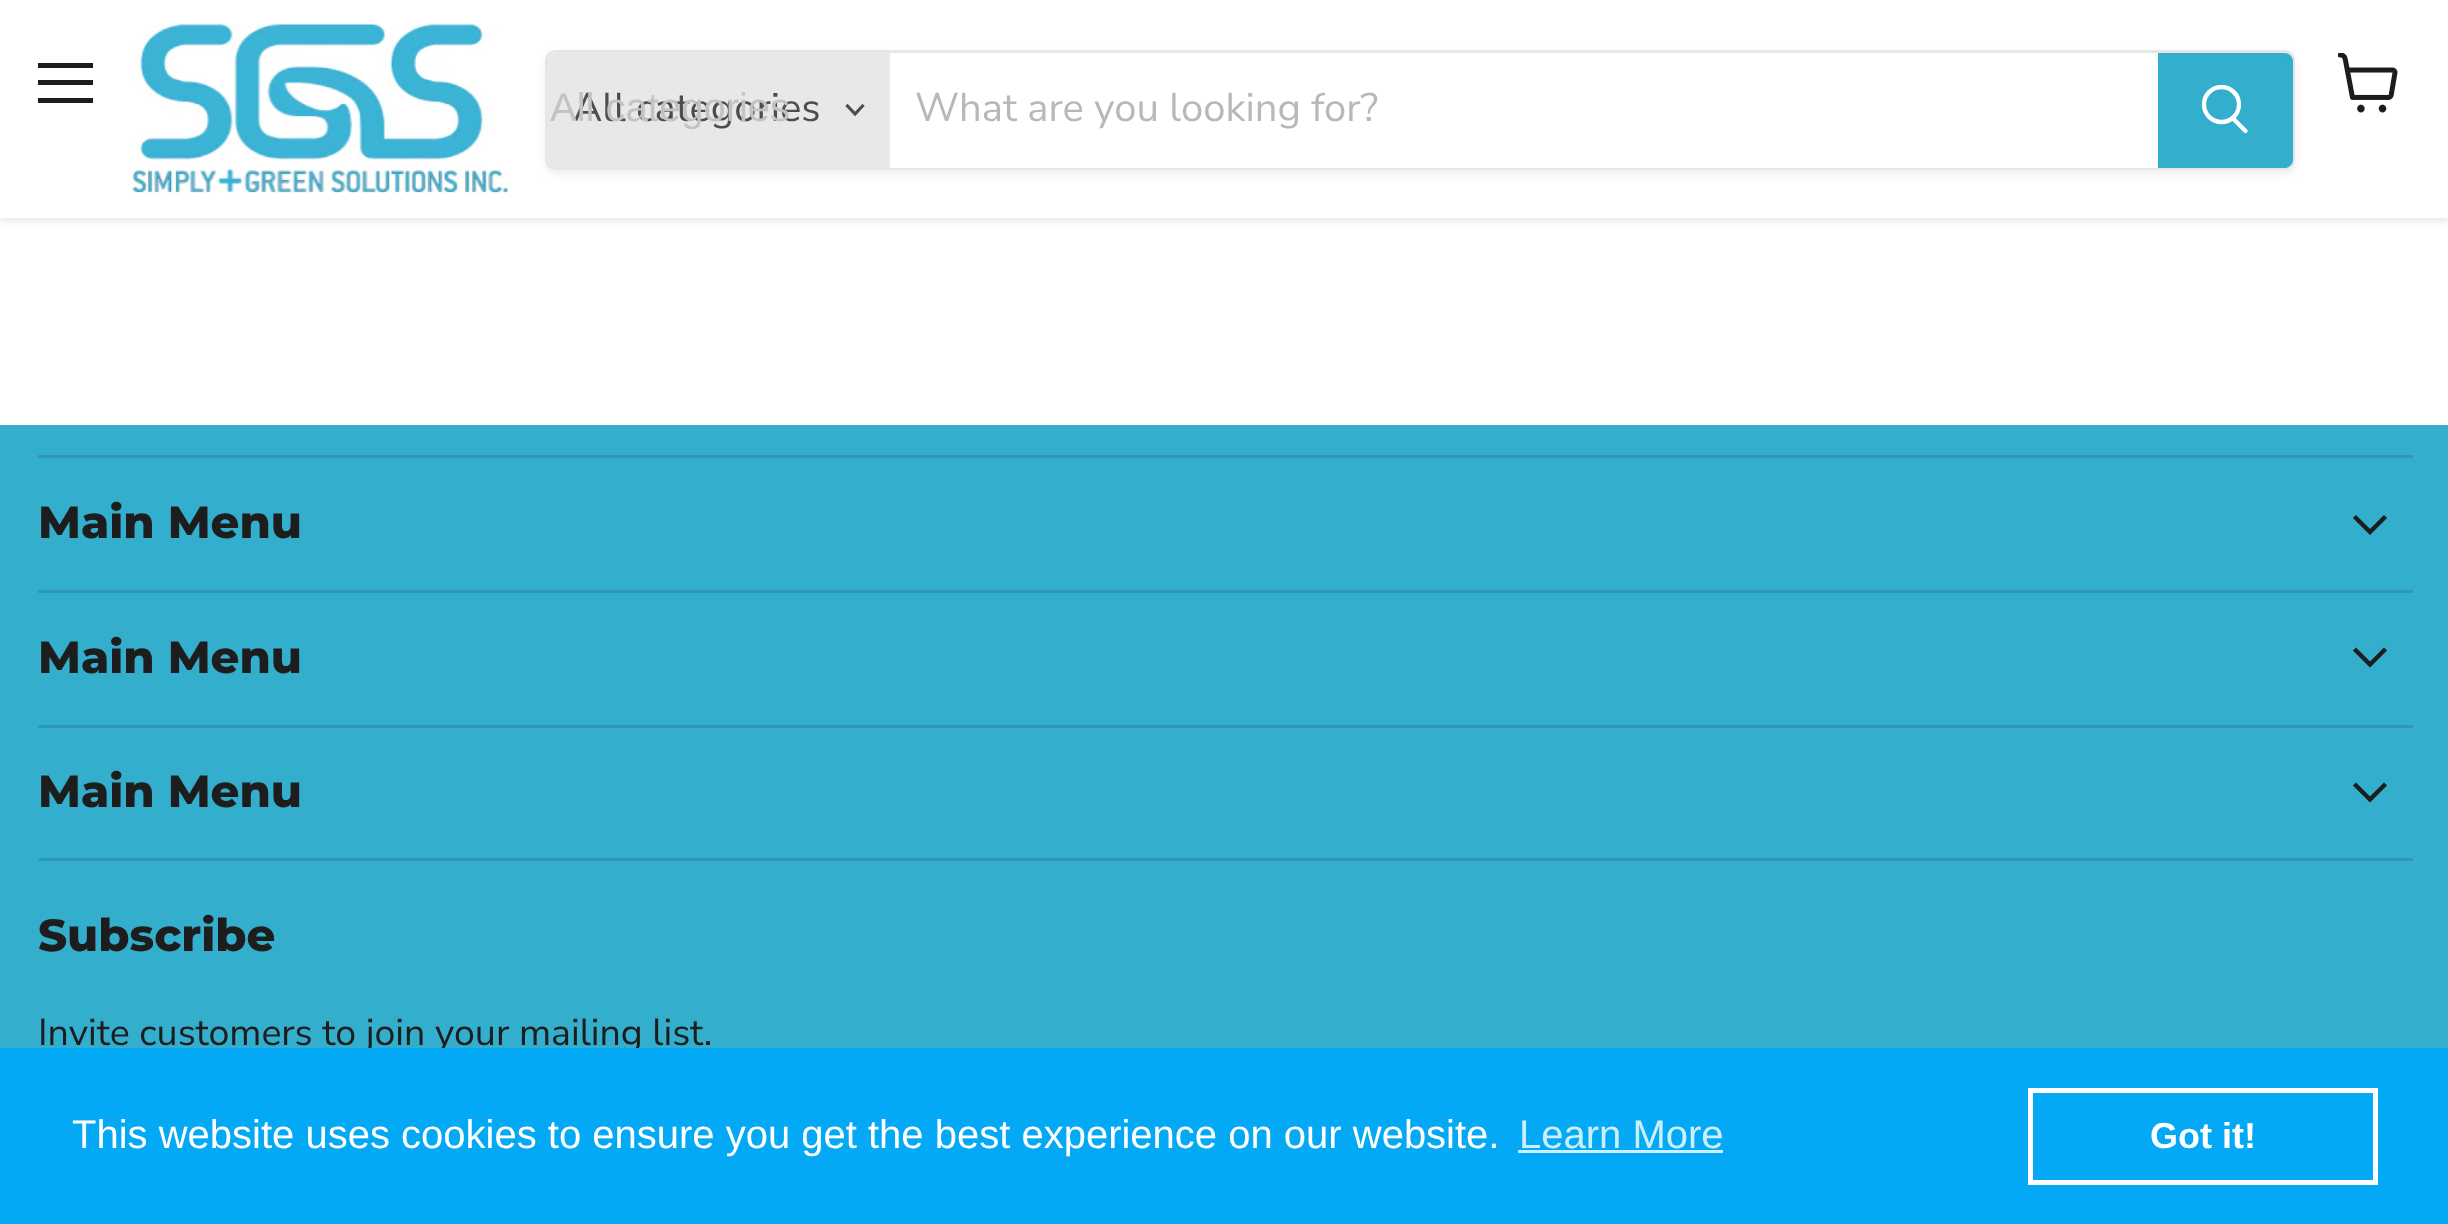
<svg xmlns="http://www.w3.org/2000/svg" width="2448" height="1224">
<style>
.a{font:40px Nunito Sans;fill:#4d4d4d}
.b{font:40px Liberation Sans;fill:#c3c3c3}
.c{font:40px Nunito Sans;fill:#b8b8b8}
.d{font:800 45px Montserrat;fill:#1d1d1d}
.e{font:37.5px Nunito Sans;fill:#1d1d1d}
.f{font:40px Liberation Sans;fill:#fff}
.g{font:40px Liberation Sans;fill:#cdeefd}
.h{font:bold 36px Liberation Sans;fill:#fff}
</style>
<defs>
<clipPath id="clip1"><path d="M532 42h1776v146h-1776zm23 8h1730c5.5 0 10 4.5 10 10v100c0 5.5-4.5 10-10 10h-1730c-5.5 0-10-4.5-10-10v-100c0-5.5 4.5-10 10-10z" clip-rule="evenodd"/></clipPath>
<clipPath id="clip2"><path d="M2200 85h50v53H2200z"/></clipPath>
</defs>
<rect width="100%" height="100%" fill="#fff"/>
<path fill="#80808040" filter="blur(5px)" d="M0 3h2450v217H0z"/>
<path fill="#fff" d="M0 0h2448v218H0z"/>
<path fill="#1d1d1d" d="M38 63h55v5H38z"/>
<path fill="#1d1d1d" d="M38 80h55v5H38z"/>
<path fill="#1d1d1d" d="M38 98h55v5H38z"/>
<image href="1.png" x="2338" y="53" width="60" height="60"/>
<image href="2.png" x="132" y="24" width="376" height="169"/>
<g clip-path="url(#clip1)">
<rect fill="#8080801c" filter="blur(4px)" x="545" y="55" width="1750" height="120" rx="10"/>
</g>
<rect fill="none" stroke="#80808033" stroke-width="3" x="546.5" y="51.5" width="1747" height="117" rx="8.5"/>
<path fill="#e8e8e8" d="M556 53h334v115h-334c-4.5 0-8-3.5-8-8v-99c0-4.5 3.5-8 8-8z"/>
<path fill="none" stroke="#4d4d4d" stroke-width="3.1" stroke-linecap="square" d="M855 114l7.5-8m-7.5 8l-7.5-8"/>
<path fill="#fff" d="M890 167h1268v1H890z"/>
<path fill="#33aecc" stroke="#33aecc" stroke-width="3" d="M2159.5 54.5h125.5c3.5 0 6.5 3 6.5 6.5v99c0 3.5-3 6.5-6.5 6.5h-125.5z"/>
<path fill="none" stroke="#fff" stroke-width="4.3" stroke-linecap="round" d="M2245.5 131l-12-12"/>
<g clip-path="url(#clip2)">
<circle fill="none" stroke="#fff" stroke-width="4.3" cx="2221.5" cy="104.5" r="17.5"/>
</g>
<path fill="#33aecc" d="M0 425h2448v623H0z"/>
<path fill="#3098b2" d="M38 455h2375v3H38z"/>
<path fill="#3098b2" d="M38 590h2375v3H38z"/>
<path fill="none" stroke="#1d1d1d" stroke-width="4.4" stroke-linecap="square" d="M2370 532l14-14m-14 14l-14-14"/>
<path fill="#3098b2" d="M38 725h2375v3H38z"/>
<path fill="none" stroke="#1d1d1d" stroke-width="4.4" stroke-linecap="square" d="M2370 664.5l14-14m-14 14l-14-14"/>
<path fill="#3098b2" d="M38 858h2375v3H38z"/>
<path fill="none" stroke="#1d1d1d" stroke-width="4.4" stroke-linecap="square" d="M2370 799.5l14-14m-14 14l-14-14"/>
<text class="a" x="573" y="121">All categories</text>
<text class="b" x="550" y="121">All categories</text>
<text class="c" x="915" y="121">What are you looking for?</text>
<text class="d" x="38" y="538">Main Menu</text>
<text class="d" x="38" y="673">Main Menu</text>
<text class="d" x="38" y="807">Main Menu</text>
<text class="d" x="38" y="951">Subscribe</text>
<text class="e" x="38" y="1045">Invite customers to join your mailing list.</text>
<path fill="#03a9f4" d="M0 1048h2448v176H0z"/>
<text class="f" x="72" y="1148">This website uses cookies to ensure you get the best experience on our website.</text>
<text class="g" x="1519" y="1148">Learn More</text>
<path fill="#cdeefd" d="M1518 1150h205v3H1518z"/>
<path fill="none" stroke="#fff" stroke-width="5" d="M2030.5 1090.5h345v92H2030.5z"/>
<text class="h" x="2150" y="1148">Got it!</text>
</svg>
